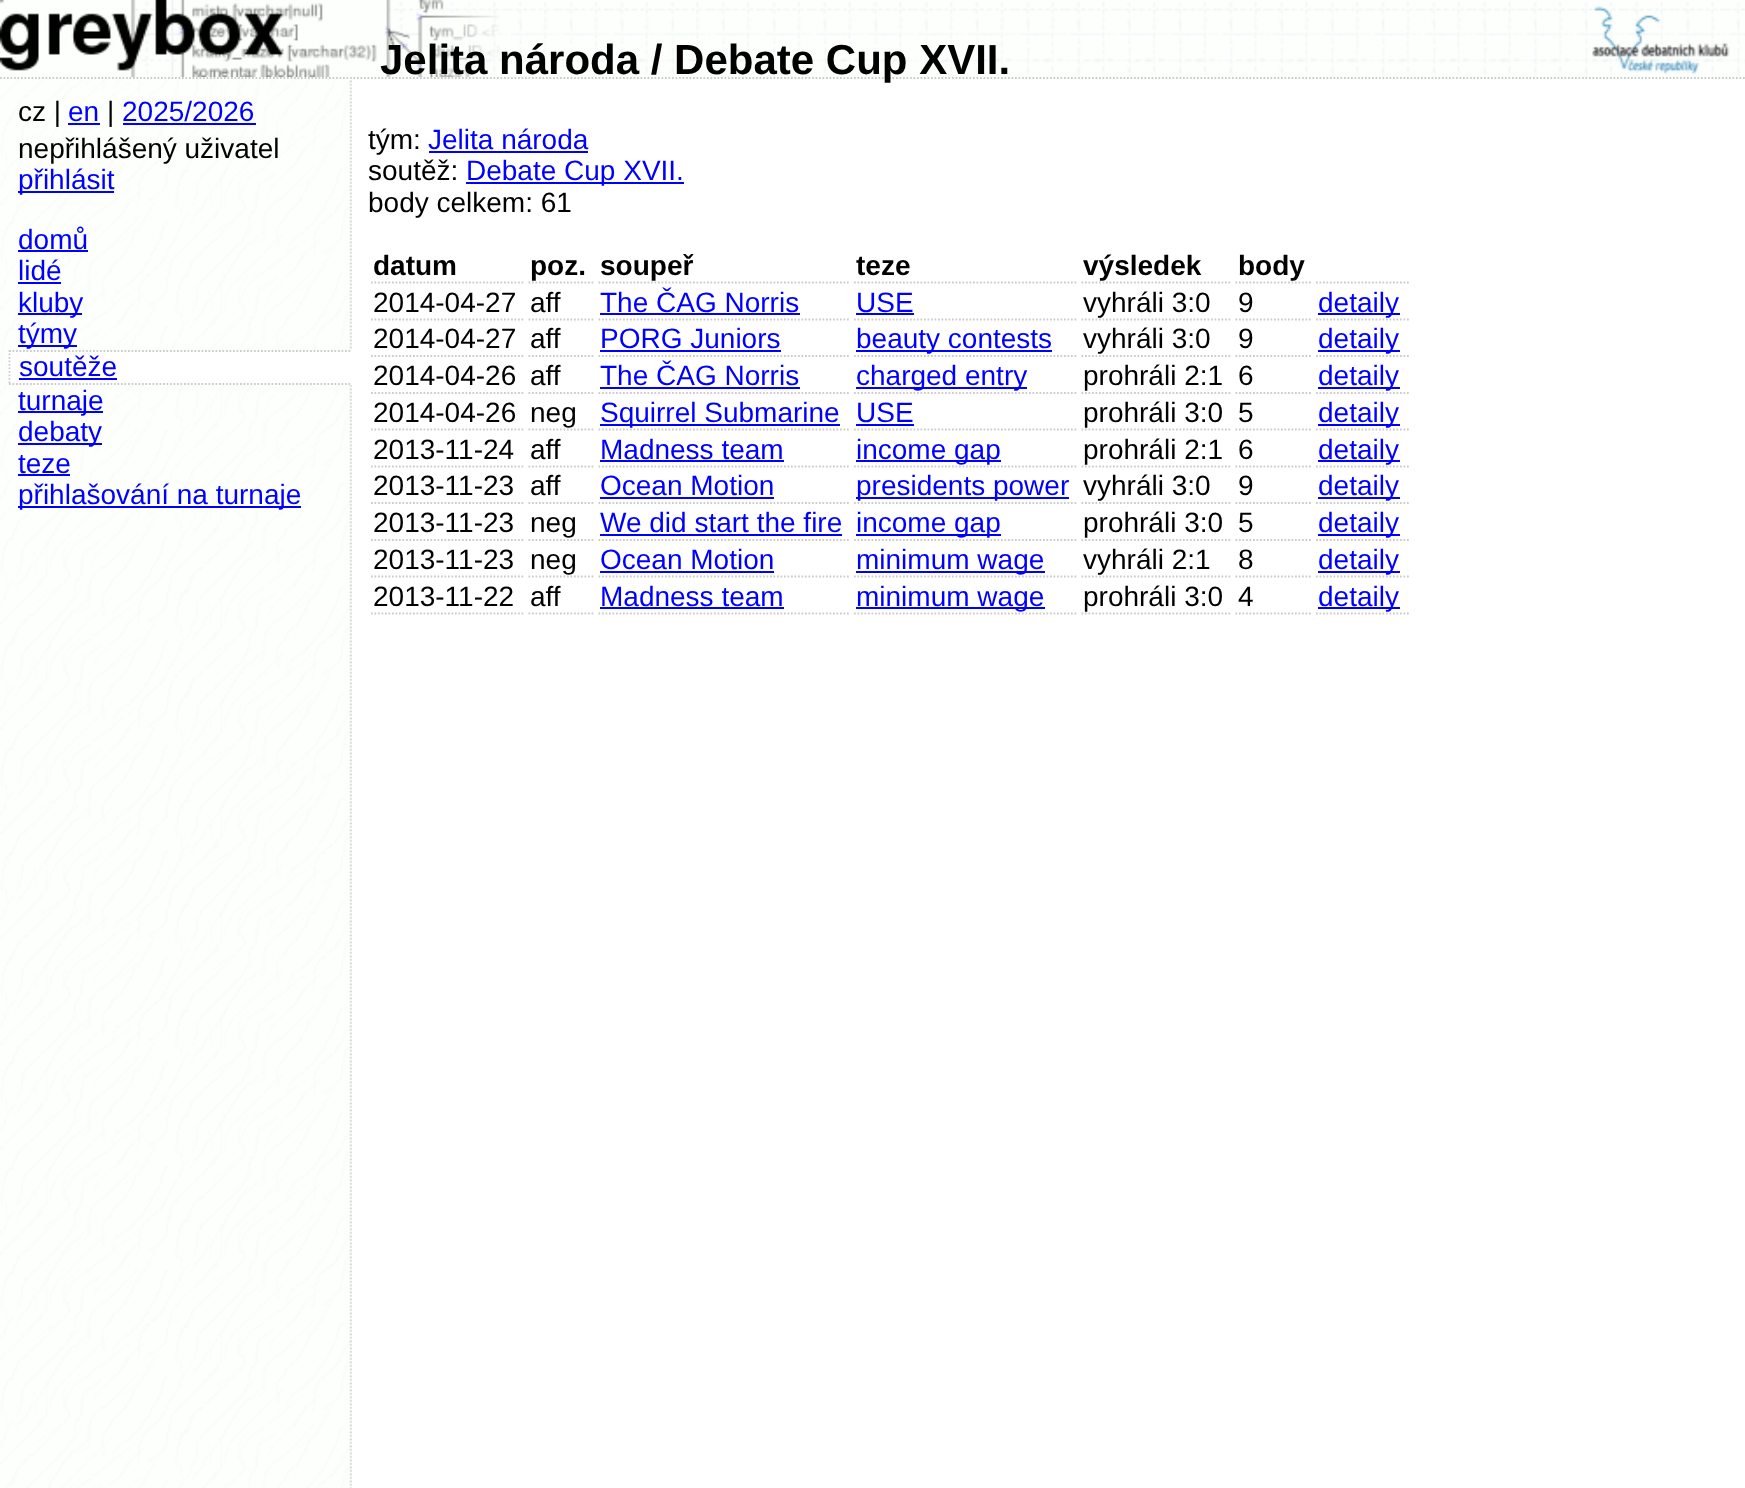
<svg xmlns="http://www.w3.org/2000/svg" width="1745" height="1488">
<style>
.a{font:bold 42px Liberation Sans;fill:#000}
.b{font:28px Liberation Sans;fill:#000}
.c{font:28px Liberation Sans;fill:#00f}
.d{font:bold 28px Liberation Sans;fill:#000}
</style>
<rect width="100%" height="100%" fill="#fff"/>
<image href="1.png" x="0" y="79" width="352" height="1409"/>
<path fill="#fdfffc" d="M0 0h1745v79H0z"/>
<image href="2.png" x="426" y="2" width="1319" height="75"/>
<path fill="none" stroke="#cbcdca" stroke-width="1.8" stroke-dasharray="1.75 1.75" d="M0 78h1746.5"/>
<image href="3.png" x="0" y="0" width="500" height="77"/>
<image href="4.png" x="1592" y="6" width="138" height="68"/>
<path fill="#00f" d="M68 123h32v2H68z"/>
<path fill="#00f" d="M123 123h133v2H123z"/>
<path fill="#00f" d="M18 191h96v2H18z"/>
<path fill="#00f" d="M18 250h70v2H18z"/>
<path fill="#00f" d="M18 282h43v2H18z"/>
<path fill="#00f" d="M18 313h64v2H18z"/>
<path fill="#00f" d="M18 345h59v2H18z"/>
<path fill="#fff" d="M9 350h343v35H9z"/>
<path fill="none" stroke="#cbcdca" stroke-width="1.8" stroke-dasharray="1.75 1.75" d="M9 351h343"/>
<path fill="none" stroke="#cbcdca" stroke-width="1.8" stroke-dasharray="1.75 1.75" d="M9 384h343"/>
<path fill="none" stroke="#cbcdca" stroke-width="1.8" stroke-dasharray="1.75 1.75" d="M9.5 350v35"/>
<path fill="#00f" d="M19 378h98v2H19z"/>
<path fill="#00f" d="M18 411h85v2H18z"/>
<path fill="#00f" d="M18 443h84v2H18z"/>
<path fill="#00f" d="M18 474h52v2H18z"/>
<path fill="#00f" d="M18 506h283v2H18z"/>
<path fill="#00f" d="M429 151h159v2H429z"/>
<path fill="#00f" d="M466 182h218v2H466z"/>
<path fill="none" stroke="#cbcdca" stroke-width="1.8" stroke-dasharray="1.75 1.75" d="M371 282.5h154"/>
<path fill="none" stroke="#cbcdca" stroke-width="1.8" stroke-dasharray="1.75 1.75" d="M528.5 282.5h66.5"/>
<path fill="none" stroke="#cbcdca" stroke-width="1.8" stroke-dasharray="1.75 1.75" d="M598.5 282.5h252"/>
<path fill="none" stroke="#cbcdca" stroke-width="1.8" stroke-dasharray="1.75 1.75" d="M854 282.5h224"/>
<path fill="none" stroke="#cbcdca" stroke-width="1.8" stroke-dasharray="1.75 1.75" d="M1081.5 282.5h150.5"/>
<path fill="none" stroke="#cbcdca" stroke-width="1.8" stroke-dasharray="1.75 1.75" d="M1235.5 282.5h77"/>
<path fill="none" stroke="#cbcdca" stroke-width="1.8" stroke-dasharray="1.75 1.75" d="M1316 282.5h93"/>
<path fill="none" stroke="#cbcdca" stroke-width="1.8" stroke-dasharray="1.75 1.75" d="M371 319.5h154"/>
<path fill="none" stroke="#cbcdca" stroke-width="1.8" stroke-dasharray="1.75 1.75" d="M528.5 319.5h66.5"/>
<path fill="none" stroke="#cbcdca" stroke-width="1.8" stroke-dasharray="1.75 1.75" d="M598.5 319.5h252"/>
<path fill="#00f" d="M600 313h200v2H600z"/>
<path fill="none" stroke="#cbcdca" stroke-width="1.8" stroke-dasharray="1.75 1.75" d="M854 319.5h224"/>
<path fill="#00f" d="M856 313h58v2H856z"/>
<path fill="none" stroke="#cbcdca" stroke-width="1.8" stroke-dasharray="1.75 1.75" d="M1081.5 319.5h150.5"/>
<path fill="none" stroke="#cbcdca" stroke-width="1.8" stroke-dasharray="1.75 1.75" d="M1235.5 319.5h77"/>
<path fill="none" stroke="#cbcdca" stroke-width="1.8" stroke-dasharray="1.75 1.75" d="M1316 319.5h93"/>
<path fill="#00f" d="M1318 313h82v2H1318z"/>
<path fill="none" stroke="#cbcdca" stroke-width="1.8" stroke-dasharray="1.75 1.75" d="M371 356h154"/>
<path fill="none" stroke="#cbcdca" stroke-width="1.8" stroke-dasharray="1.75 1.75" d="M528.5 356h66.5"/>
<path fill="none" stroke="#cbcdca" stroke-width="1.8" stroke-dasharray="1.75 1.75" d="M598.5 356h252"/>
<path fill="#00f" d="M600 350h181v2H600z"/>
<path fill="none" stroke="#cbcdca" stroke-width="1.8" stroke-dasharray="1.75 1.75" d="M854 356h224"/>
<path fill="#00f" d="M856 350h196v2H856z"/>
<path fill="none" stroke="#cbcdca" stroke-width="1.8" stroke-dasharray="1.75 1.75" d="M1081.5 356h150.5"/>
<path fill="none" stroke="#cbcdca" stroke-width="1.8" stroke-dasharray="1.75 1.75" d="M1235.5 356h77"/>
<path fill="none" stroke="#cbcdca" stroke-width="1.8" stroke-dasharray="1.75 1.75" d="M1316 356h93"/>
<path fill="#00f" d="M1318 350h82v2H1318z"/>
<path fill="none" stroke="#cbcdca" stroke-width="1.8" stroke-dasharray="1.75 1.75" d="M371 393h154"/>
<path fill="none" stroke="#cbcdca" stroke-width="1.8" stroke-dasharray="1.75 1.75" d="M528.5 393h66.5"/>
<path fill="none" stroke="#cbcdca" stroke-width="1.8" stroke-dasharray="1.75 1.75" d="M598.5 393h252"/>
<path fill="#00f" d="M600 387h200v2H600z"/>
<path fill="none" stroke="#cbcdca" stroke-width="1.8" stroke-dasharray="1.75 1.75" d="M854 393h224"/>
<path fill="#00f" d="M856 387h171v2H856z"/>
<path fill="none" stroke="#cbcdca" stroke-width="1.8" stroke-dasharray="1.75 1.75" d="M1081.5 393h150.5"/>
<path fill="none" stroke="#cbcdca" stroke-width="1.8" stroke-dasharray="1.75 1.75" d="M1235.5 393h77"/>
<path fill="none" stroke="#cbcdca" stroke-width="1.8" stroke-dasharray="1.75 1.75" d="M1316 393h93"/>
<path fill="#00f" d="M1318 387h82v2H1318z"/>
<path fill="none" stroke="#cbcdca" stroke-width="1.8" stroke-dasharray="1.75 1.75" d="M371 429.5h154"/>
<path fill="none" stroke="#cbcdca" stroke-width="1.8" stroke-dasharray="1.75 1.75" d="M528.5 429.5h66.5"/>
<path fill="none" stroke="#cbcdca" stroke-width="1.8" stroke-dasharray="1.75 1.75" d="M598.5 429.5h252"/>
<path fill="#00f" d="M600 424h240v2H600z"/>
<path fill="none" stroke="#cbcdca" stroke-width="1.8" stroke-dasharray="1.75 1.75" d="M854 429.5h224"/>
<path fill="#00f" d="M856 424h58v2H856z"/>
<path fill="none" stroke="#cbcdca" stroke-width="1.8" stroke-dasharray="1.75 1.75" d="M1081.5 429.5h150.5"/>
<path fill="none" stroke="#cbcdca" stroke-width="1.8" stroke-dasharray="1.75 1.75" d="M1235.5 429.5h77"/>
<path fill="none" stroke="#cbcdca" stroke-width="1.8" stroke-dasharray="1.75 1.75" d="M1316 429.5h93"/>
<path fill="#00f" d="M1318 424h82v2H1318z"/>
<path fill="none" stroke="#cbcdca" stroke-width="1.8" stroke-dasharray="1.75 1.75" d="M371 466.5h154"/>
<path fill="none" stroke="#cbcdca" stroke-width="1.8" stroke-dasharray="1.75 1.75" d="M528.5 466.5h66.5"/>
<path fill="none" stroke="#cbcdca" stroke-width="1.8" stroke-dasharray="1.75 1.75" d="M598.5 466.5h252"/>
<path fill="#00f" d="M600 460h184v2H600z"/>
<path fill="none" stroke="#cbcdca" stroke-width="1.8" stroke-dasharray="1.75 1.75" d="M854 466.5h224"/>
<path fill="#00f" d="M856 460h145v2H856z"/>
<path fill="none" stroke="#cbcdca" stroke-width="1.8" stroke-dasharray="1.75 1.75" d="M1081.5 466.5h150.5"/>
<path fill="none" stroke="#cbcdca" stroke-width="1.8" stroke-dasharray="1.75 1.75" d="M1235.5 466.5h77"/>
<path fill="none" stroke="#cbcdca" stroke-width="1.8" stroke-dasharray="1.75 1.75" d="M1316 466.5h93"/>
<path fill="#00f" d="M1318 460h82v2H1318z"/>
<path fill="none" stroke="#cbcdca" stroke-width="1.8" stroke-dasharray="1.75 1.75" d="M371 503h154"/>
<path fill="none" stroke="#cbcdca" stroke-width="1.8" stroke-dasharray="1.75 1.75" d="M528.5 503h66.5"/>
<path fill="none" stroke="#cbcdca" stroke-width="1.8" stroke-dasharray="1.75 1.75" d="M598.5 503h252"/>
<path fill="#00f" d="M600 497h174v2H600z"/>
<path fill="none" stroke="#cbcdca" stroke-width="1.8" stroke-dasharray="1.75 1.75" d="M854 503h224"/>
<path fill="#00f" d="M856 497h213v2H856z"/>
<path fill="none" stroke="#cbcdca" stroke-width="1.8" stroke-dasharray="1.75 1.75" d="M1081.5 503h150.5"/>
<path fill="none" stroke="#cbcdca" stroke-width="1.8" stroke-dasharray="1.75 1.75" d="M1235.5 503h77"/>
<path fill="none" stroke="#cbcdca" stroke-width="1.8" stroke-dasharray="1.75 1.75" d="M1316 503h93"/>
<path fill="#00f" d="M1318 497h82v2H1318z"/>
<path fill="none" stroke="#cbcdca" stroke-width="1.8" stroke-dasharray="1.75 1.75" d="M371 540h154"/>
<path fill="none" stroke="#cbcdca" stroke-width="1.8" stroke-dasharray="1.75 1.75" d="M528.5 540h66.5"/>
<path fill="none" stroke="#cbcdca" stroke-width="1.8" stroke-dasharray="1.75 1.75" d="M598.5 540h252"/>
<path fill="#00f" d="M600 534h242v2H600z"/>
<path fill="none" stroke="#cbcdca" stroke-width="1.8" stroke-dasharray="1.75 1.75" d="M854 540h224"/>
<path fill="#00f" d="M856 534h145v2H856z"/>
<path fill="none" stroke="#cbcdca" stroke-width="1.8" stroke-dasharray="1.75 1.75" d="M1081.5 540h150.5"/>
<path fill="none" stroke="#cbcdca" stroke-width="1.8" stroke-dasharray="1.75 1.75" d="M1235.5 540h77"/>
<path fill="none" stroke="#cbcdca" stroke-width="1.8" stroke-dasharray="1.75 1.75" d="M1316 540h93"/>
<path fill="#00f" d="M1318 534h82v2H1318z"/>
<path fill="none" stroke="#cbcdca" stroke-width="1.8" stroke-dasharray="1.75 1.75" d="M371 576.5h154"/>
<path fill="none" stroke="#cbcdca" stroke-width="1.8" stroke-dasharray="1.75 1.75" d="M528.5 576.5h66.5"/>
<path fill="none" stroke="#cbcdca" stroke-width="1.8" stroke-dasharray="1.75 1.75" d="M598.5 576.5h252"/>
<path fill="#00f" d="M600 571h174v2H600z"/>
<path fill="none" stroke="#cbcdca" stroke-width="1.8" stroke-dasharray="1.75 1.75" d="M854 576.5h224"/>
<path fill="#00f" d="M856 571h189v2H856z"/>
<path fill="none" stroke="#cbcdca" stroke-width="1.8" stroke-dasharray="1.75 1.75" d="M1081.5 576.5h150.5"/>
<path fill="none" stroke="#cbcdca" stroke-width="1.8" stroke-dasharray="1.75 1.75" d="M1235.5 576.5h77"/>
<path fill="none" stroke="#cbcdca" stroke-width="1.8" stroke-dasharray="1.75 1.75" d="M1316 576.5h93"/>
<path fill="#00f" d="M1318 571h82v2H1318z"/>
<path fill="none" stroke="#cbcdca" stroke-width="1.8" stroke-dasharray="1.75 1.75" d="M371 613.5h154"/>
<path fill="none" stroke="#cbcdca" stroke-width="1.8" stroke-dasharray="1.75 1.75" d="M528.5 613.5h66.5"/>
<path fill="none" stroke="#cbcdca" stroke-width="1.8" stroke-dasharray="1.75 1.75" d="M598.5 613.5h252"/>
<path fill="#00f" d="M600 607h184v2H600z"/>
<path fill="none" stroke="#cbcdca" stroke-width="1.8" stroke-dasharray="1.75 1.75" d="M854 613.5h224"/>
<path fill="#00f" d="M856 607h189v2H856z"/>
<path fill="none" stroke="#cbcdca" stroke-width="1.8" stroke-dasharray="1.75 1.75" d="M1081.5 613.5h150.5"/>
<path fill="none" stroke="#cbcdca" stroke-width="1.8" stroke-dasharray="1.75 1.75" d="M1235.5 613.5h77"/>
<path fill="none" stroke="#cbcdca" stroke-width="1.8" stroke-dasharray="1.75 1.75" d="M1316 613.5h93"/>
<path fill="#00f" d="M1318 607h82v2H1318z"/>
<text class="a" x="380" y="74">Jelita národa / Debate Cup XVII.</text>
<text class="b" x="18" y="121">cz |</text>
<text class="c" x="68" y="121">en</text>
<text class="b" x="107" y="121">|</text>
<text class="c" x="122" y="121">2025/2026</text>
<text class="b" x="18" y="158">nepřihlášený uživatel</text>
<text class="c" x="18" y="189">přihlásit</text>
<text class="c" x="18" y="249">domů</text>
<text class="c" x="18" y="280">lidé</text>
<text class="c" x="18" y="312">kluby</text>
<text class="c" x="18" y="343">týmy</text>
<text class="c" x="19" y="376">soutěže</text>
<text class="c" x="18" y="410">turnaje</text>
<text class="c" x="18" y="441">debaty</text>
<text class="c" x="18" y="473">teze</text>
<text class="c" x="18" y="504">přihlašování na turnaje</text>
<text class="b" x="368" y="149">tým:</text>
<text class="c" x="428" y="149">Jelita národa</text>
<text class="b" x="368" y="180">soutěž:</text>
<text class="c" x="466" y="180">Debate Cup XVII.</text>
<text class="b" x="368" y="212">body celkem: 61</text>
<text class="d" x="373" y="275">datum</text>
<text class="d" x="530" y="275">poz.</text>
<text class="d" x="600" y="275">soupeř</text>
<text class="d" x="856" y="275">teze</text>
<text class="d" x="1083" y="275">výsledek</text>
<text class="d" x="1238" y="275">body</text>
<text class="b" x="373" y="312">2014-04-27</text>
<text class="b" x="530" y="312">aff</text>
<text class="c" x="600" y="312">The ČAG Norris</text>
<text class="c" x="856" y="312">USE</text>
<text class="b" x="1083" y="312">vyhráli 3:0</text>
<text class="b" x="1238" y="312">9</text>
<text class="c" x="1318" y="312">detaily</text>
<text class="b" x="373" y="348">2014-04-27</text>
<text class="b" x="530" y="348">aff</text>
<text class="c" x="600" y="348">PORG Juniors</text>
<text class="c" x="856" y="348">beauty contests</text>
<text class="b" x="1083" y="348">vyhráli 3:0</text>
<text class="b" x="1238" y="348">9</text>
<text class="c" x="1318" y="348">detaily</text>
<text class="b" x="373" y="385">2014-04-26</text>
<text class="b" x="530" y="385">aff</text>
<text class="c" x="600" y="385">The ČAG Norris</text>
<text class="c" x="856" y="385">charged entry</text>
<text class="b" x="1083" y="385">prohráli 2:1</text>
<text class="b" x="1238" y="385">6</text>
<text class="c" x="1318" y="385">detaily</text>
<text class="b" x="373" y="422">2014-04-26</text>
<text class="b" x="530" y="422">neg</text>
<text class="c" x="600" y="422">Squirrel Submarine</text>
<text class="c" x="856" y="422">USE</text>
<text class="b" x="1083" y="422">prohráli 3:0</text>
<text class="b" x="1238" y="422">5</text>
<text class="c" x="1318" y="422">detaily</text>
<text class="b" x="373" y="459">2013-11-24</text>
<text class="b" x="530" y="459">aff</text>
<text class="c" x="600" y="459">Madness team</text>
<text class="c" x="856" y="459">income gap</text>
<text class="b" x="1083" y="459">prohráli 2:1</text>
<text class="b" x="1238" y="459">6</text>
<text class="c" x="1318" y="459">detaily</text>
<text class="b" x="373" y="495">2013-11-23</text>
<text class="b" x="530" y="495">aff</text>
<text class="c" x="600" y="495">Ocean Motion</text>
<text class="c" x="856" y="495">presidents power</text>
<text class="b" x="1083" y="495">vyhráli 3:0</text>
<text class="b" x="1238" y="495">9</text>
<text class="c" x="1318" y="495">detaily</text>
<text class="b" x="373" y="532">2013-11-23</text>
<text class="b" x="530" y="532">neg</text>
<text class="c" x="600" y="532">We did start the fire</text>
<text class="c" x="856" y="532">income gap</text>
<text class="b" x="1083" y="532">prohráli 3:0</text>
<text class="b" x="1238" y="532">5</text>
<text class="c" x="1318" y="532">detaily</text>
<text class="b" x="373" y="569">2013-11-23</text>
<text class="b" x="530" y="569">neg</text>
<text class="c" x="600" y="569">Ocean Motion</text>
<text class="c" x="856" y="569">minimum wage</text>
<text class="b" x="1083" y="569">vyhráli 2:1</text>
<text class="b" x="1238" y="569">8</text>
<text class="c" x="1318" y="569">detaily</text>
<text class="b" x="373" y="606">2013-11-22</text>
<text class="b" x="530" y="606">aff</text>
<text class="c" x="600" y="606">Madness team</text>
<text class="c" x="856" y="606">minimum wage</text>
<text class="b" x="1083" y="606">prohráli 3:0</text>
<text class="b" x="1238" y="606">4</text>
<text class="c" x="1318" y="606">detaily</text>
</svg>
